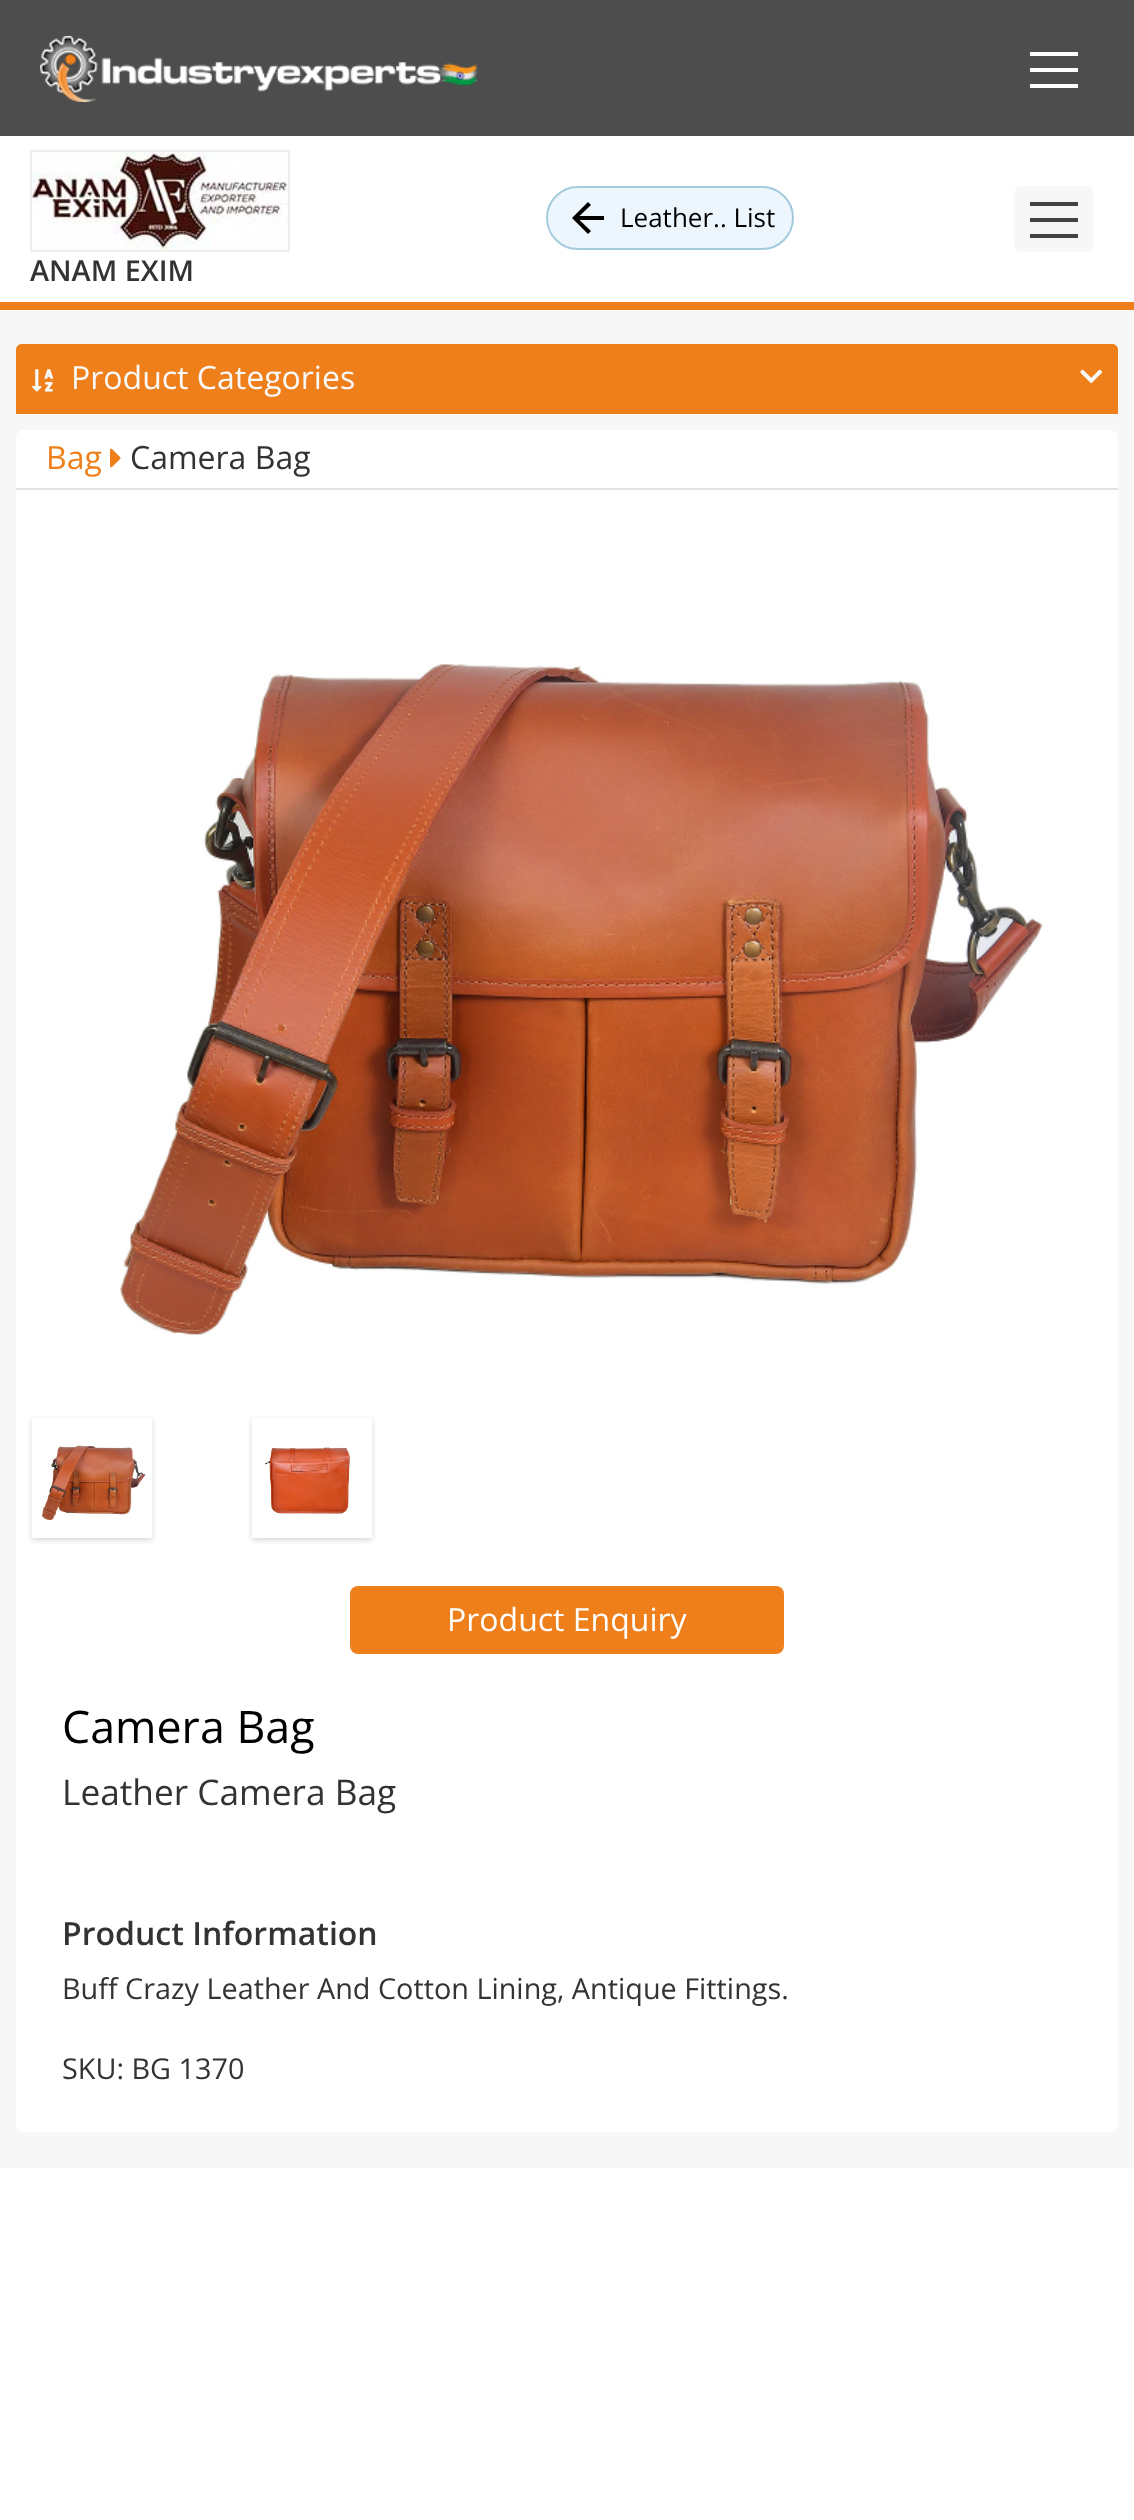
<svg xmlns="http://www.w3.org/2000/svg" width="1134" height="2520">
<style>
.a{font:26px Open Sans;fill:#000}
.b{font:600 28.8px Open Sans;fill:#333}
.c{font:32px Open Sans;fill:#f8f9fa}
.d{font:32px Open Sans;fill:#ef7f1a}
.e{font:32px Open Sans;fill:#333}
.f{font:32px Open Sans;fill:#fff}
.g{font:44.75px Open Sans;fill:#000}
.h{font:35.25px Open Sans;fill:#333}
.i{font:600 32px Open Sans;fill:#333}
.j{font:28.8px Open Sans;fill:#333}
</style>
<defs>
<clipPath id="clip1"><path d="M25 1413h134v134h-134zm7 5h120v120h-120z" clip-rule="evenodd"/></clipPath>
<clipPath id="clip2"><path d="M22 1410h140v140h-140zm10 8h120v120h-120z" clip-rule="evenodd"/></clipPath>
<clipPath id="clip3"><path d="M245 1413h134v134h-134zm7 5h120v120h-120z" clip-rule="evenodd"/></clipPath>
<clipPath id="clip4"><path d="M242 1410h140v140h-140zm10 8h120v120h-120z" clip-rule="evenodd"/></clipPath>
</defs>
<rect width="100%" height="100%" fill="#fff"/>
<path fill="#4d4d4d" d="M0 0h1134v136H0z"/>
<image href="1.png" x="40" y="36" width="439" height="66"/>
<path fill="#fff" d="M1030 52h48v4H1030z"/>
<path fill="#fff" d="M1030 68h48v4H1030z"/>
<path fill="#fff" d="M1030 84h48v4H1030z"/>
<path fill="#ef7f1a" d="M0 302h1134v8H0z"/>
<rect fill="#eef6fd" stroke="#a3cbdd" stroke-width="2" x="547" y="187" width="246" height="62" rx="31"/>
<path fill="#000" d="M604 216h-24.5l11.5-11l-3-3l-16 16l16 16l3-3l-11.5-11h24.5z"/>
<rect fill="#f7f7f7" x="1014" y="186" width="80" height="66" rx="8"/>
<path fill="#444242" d="M1030 202h48v4H1030z"/>
<path fill="#444242" d="M1030 218h48v4H1030z"/>
<path fill="#444242" d="M1030 234h48v4H1030z"/>
<path fill="none" stroke="#eee" stroke-width="2" d="M31 151h258v100H31z"/>
<image href="2.png" x="32" y="152" width="256" height="98"/>
<path fill="#f7f7f7" d="M0 310h1134v1858H0z"/>
<path fill="#ef7f1a" d="M22 344h1090c3.5 0 6 2.5 6 6v64h-1102v-64c0-3.5 2.5-6 6-6z"/>
<image href="3.png" x="32" y="369" width="22" height="23"/>
<image href="4.png" x="1080" y="369" width="23" height="14"/>
<rect fill="#fff" x="16" y="430" width="1102" height="1702" rx="8"/>
<path fill="#dee2e6" d="M16 488h1102v2H16z"/>
<image href="5.png" x="110" y="448" width="11" height="20"/>
<image href="6.png" x="120" y="663" width="923" height="672"/>
<g clip-path="url(#clip1)">
<path fill="#0000000f" filter="blur(2px)" d="M32 1420h120v120H32z"/>
</g>
<g clip-path="url(#clip2)">
<path fill="#0000001a" filter="blur(3px)" d="M32 1420h120v120H32z"/>
</g>
<image href="7.png" x="42" y="1445" width="104" height="75"/>
<g clip-path="url(#clip3)">
<path fill="#0000000f" filter="blur(2px)" d="M252 1420h120v120H252z"/>
</g>
<g clip-path="url(#clip4)">
<path fill="#0000001a" filter="blur(3px)" d="M252 1420h120v120H252z"/>
</g>
<image href="8.png" x="265" y="1447" width="85" height="67"/>
<rect fill="#ef7f1a" x="350" y="1586" width="434" height="68" rx="8"/>
<text class="a" x="620" y="227">Leather.. List</text>
<text class="b" x="30" y="281">ANAM EXIM</text>
<text class="c" x="71" y="389">Product Categories</text>
<text class="d" x="46" y="469">Bag</text>
<text class="e" x="130" y="469">Camera Bag</text>
<text class="f" x="447" y="1631">Product Enquiry</text>
<text class="g" x="62" y="1743">Camera Bag</text>
<text class="h" x="62" y="1805">Leather Camera Bag</text>
<text class="i" x="62" y="1945">Product Information</text>
<text class="j" x="62" y="1999">Buff Crazy Leather And Cotton Lining, Antique Fittings.</text>
<text class="j" x="62" y="2079">SKU: BG 1370</text>
</svg>
